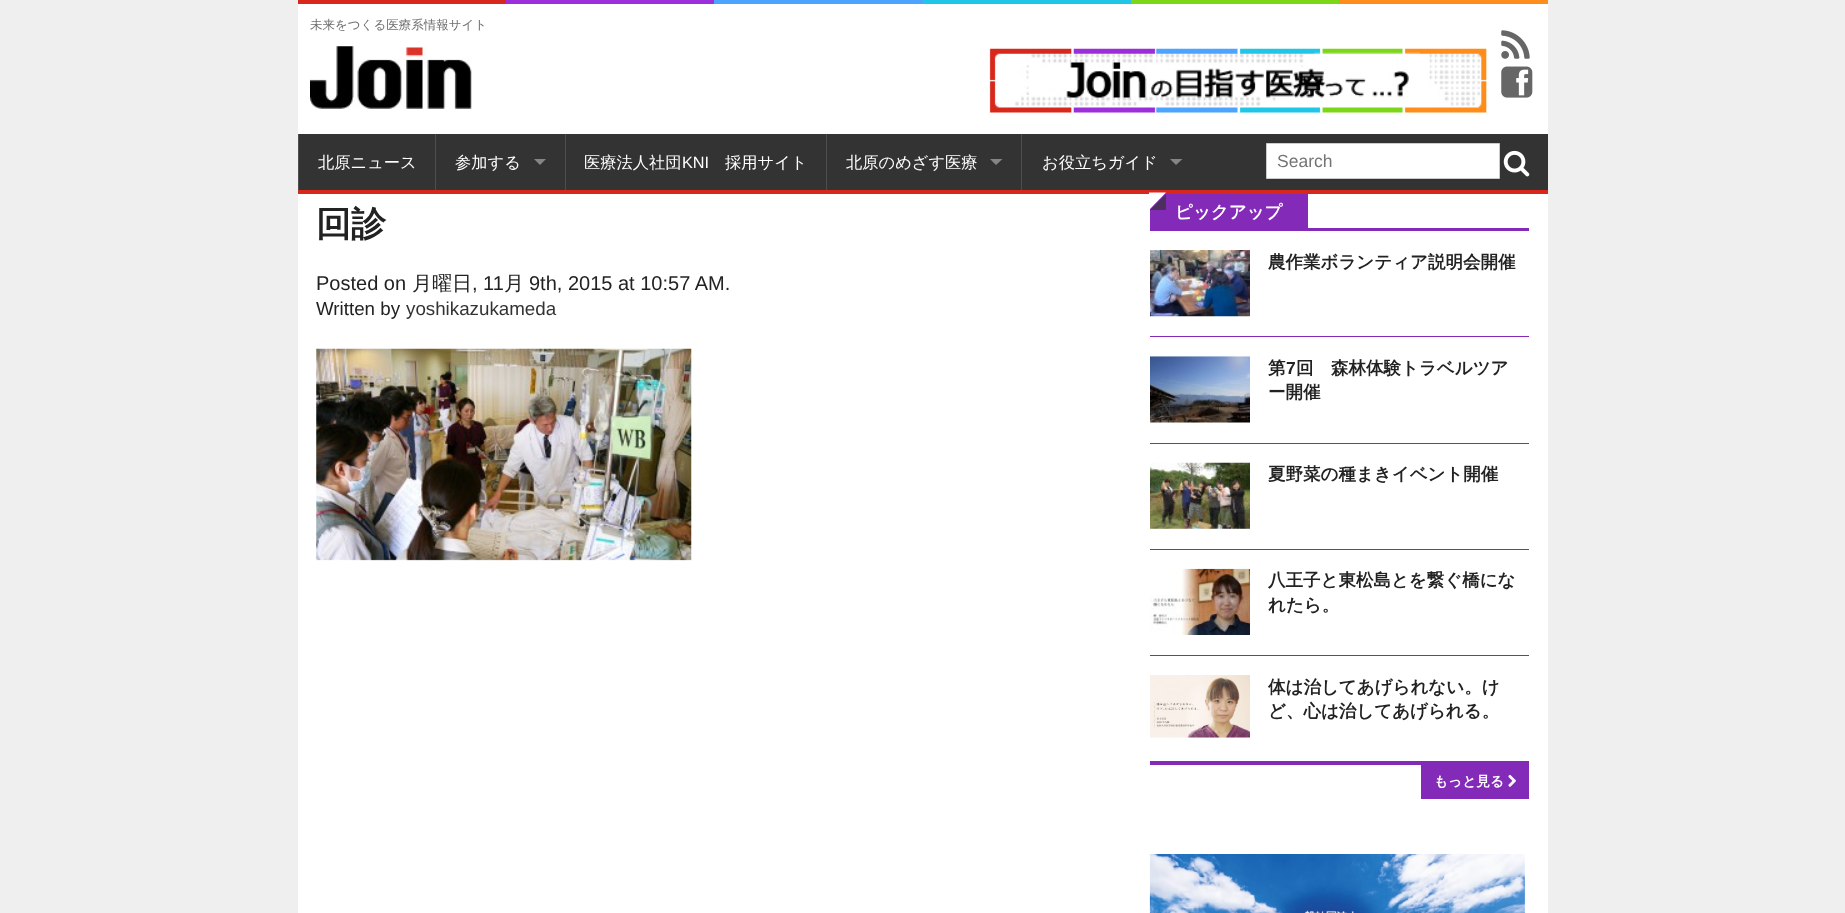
<svg xmlns="http://www.w3.org/2000/svg" width="1845" height="913">
<style>
.a{font:500 12.5px WenQuanYi Zen Hei;fill:#6f6f6f}
.b{font:500 16.25px WenQuanYi Zen Hei;fill:#fff}
.c{font:16.25px Liberation Sans;fill:#fff}
.d{font:17.5px Liberation Sans;fill:#757575}
.e{font:bold 35px WenQuanYi Zen Hei;fill:#222}
.f{font:20px Liberation Sans;fill:#222}
.g{font:500 20px WenQuanYi Zen Hei;fill:#222}
.h{font:18.75px Liberation Sans;fill:#222}
.i{font:18.75px Liberation Sans;fill:#333}
.j{font:bold 17.5px WenQuanYi Zen Hei;fill:#fff}
.k{font:bold 17.5px WenQuanYi Zen Hei;fill:#222}
.l{font:bold 17.5px Liberation Sans;fill:#222}
.m{font:bold 13.75px WenQuanYi Zen Hei;fill:#fff}
</style>
<rect width="100%" height="100%" fill="#efefef"/>
<path fill="#d8281b" d="M298 0h208v4H298z"/>
<path fill="#9c2edb" d="M506 0h208v4H506z"/>
<path fill="#4da4ff" d="M714 0h209v4H714z"/>
<path fill="#21c6e6" d="M923 0h208v4H923z"/>
<path fill="#7dd618" d="M1131 0h208v4H1131z"/>
<path fill="#ff8d1b" d="M1339 0h209v4H1339z"/>
<path fill="#fff" d="M298 4h1250v130H298z"/>
<image href="1.png" x="310" y="46" width="162" height="63"/>
<image href="2.png" x="989" y="48" width="498" height="65"/>
<image href="3.png" x="1501" y="30" width="29" height="29"/>
<image href="4.png" x="1501" y="66" width="32" height="32"/>
<path fill="#333" d="M299 134h1249v56H299z"/>
<path fill="#d8271c" d="M298 190h1250v4H298z"/>
<path fill="#4e4e4e" d="M298 134h1v56H298z"/>
<path fill="#4e4e4e" d="M435 134h1v56H435z"/>
<path fill="#858585" d="M534 159h12l-6 6z"/>
<path fill="#4e4e4e" d="M565 134h1v56H565z"/>
<path fill="#4e4e4e" d="M826 134h1v56H826z"/>
<path fill="#858585" d="M990 159h12.5l-6.5 6z"/>
<path fill="#4e4e4e" d="M1021 134h1v56H1021z"/>
<path fill="#858585" d="M1170 159h12.5l-6.5 6z"/>
<path fill="#fff" stroke="#ccc" d="M1266.5 143.5h233v35H1266.5z"/>
<image href="5.png" x="1503" y="150" width="27" height="27"/>
<path fill="#fff" d="M298 194h1250v719H298z"/>
<image href="6.png" x="316" y="348" width="376" height="213"/>
<path fill="#842ab8" d="M1150 194h158v34H1150z"/>
<path fill="#4d2f5f" d="M1166 210h-16l16-16z"/>
<path fill="#fff" d="M1149 192.5h17l-17 17.5z"/>
<path fill="#842ab8" d="M1150 228h379v3H1150z"/>
<path fill="#842ab8" d="M1150 761h379v4H1150z"/>
<image href="7.png" x="1150" y="250" width="100" height="67"/>
<path fill="#842ab8" d="M1150 336h379v1H1150z"/>
<image href="8.png" x="1150" y="356" width="100" height="67"/>
<path fill="#842ab8" d="M1150 443h379v1H1150z"/>
<image href="9.png" x="1150" y="462" width="100" height="67"/>
<path fill="#842ab8" d="M1150 549h379v1H1150z"/>
<image href="10.png" x="1150" y="568" width="100" height="67"/>
<path fill="#842ab8" d="M1150 655h379v1H1150z"/>
<image href="11.png" x="1150" y="675" width="100" height="63"/>
<path fill="#842ab8" d="M1421 765h108v34H1421z"/>
<image href="12.png" x="1508" y="774" width="8" height="13"/>
<image href="13.png" x="1149" y="854" width="376" height="59"/>
<text class="a" x="310" y="29">未来をつくる医療系情報サイト</text>
<text class="b" x="318" y="168">北原ニュース</text>
<text class="b" x="455" y="168">参加する</text>
<text class="b" x="584" y="168">医療法人社団</text>
<text class="c" x="682" y="168">KNI</text>
<text class="b" x="725" y="168">採用サイト</text>
<text class="b" x="846" y="168">北原のめざす医療</text>
<text class="b" x="1042" y="168">お役立ちガイド</text>
<text class="d" x="1277" y="167">Search</text>
<text class="e" x="316" y="236">回診</text>
<text class="f" x="316" y="290">Posted on</text>
<text class="g" x="412" y="290">月曜日</text>
<text class="f" x="472" y="290">, 11</text>
<text class="g" x="504" y="290">月</text>
<text class="f" x="529" y="290">9th, 2015 at 10:57 AM.</text>
<text class="h" x="316" y="315">Written by</text>
<text class="i" x="406" y="315">yoshikazukameda</text>
<text class="j" x="1175" y="218">ピックアップ</text>
<text class="k" x="1268" y="268">農作業ボランティア説明会開催</text>
<text class="k" x="1268" y="374">第</text>
<text class="l" x="1286" y="374">7</text>
<text class="k" x="1296" y="374">回　森林体験トラベルツア</text>
<text class="k" x="1268" y="398">ー開催</text>
<text class="k" x="1268" y="480">夏野菜の種まきイベント開催</text>
<text class="k" x="1268" y="586">八王子と東松島とを繋ぐ橋にな</text>
<text class="k" x="1268" y="611">れたら。</text>
<text class="k" x="1268" y="693">体は治してあげられない。け</text>
<text class="k" x="1268" y="717">ど、心は治してあげられる。</text>
<text class="m" x="1434" y="786">もっと見る</text>
</svg>
